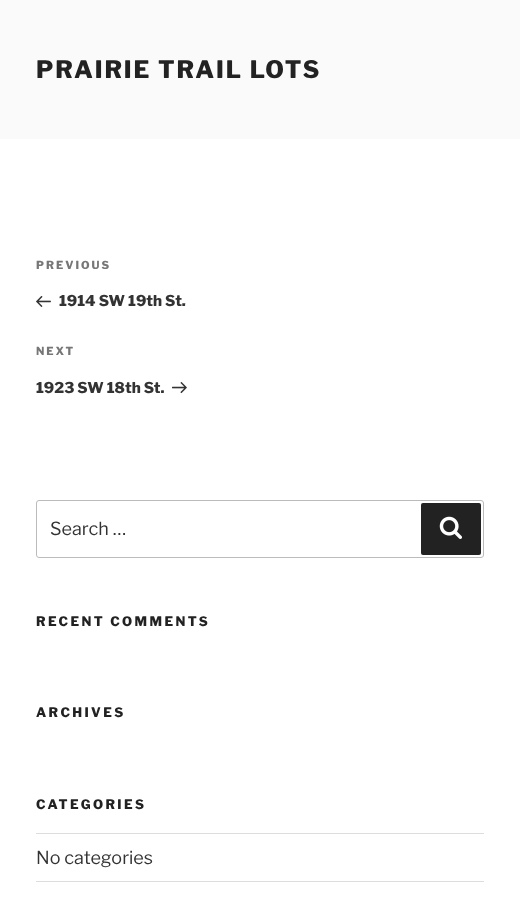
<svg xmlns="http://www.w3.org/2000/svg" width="520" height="903">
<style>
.a{font:100 24px Libre Franklin;letter-spacing:1.9px;fill:#222}
.b{font:100 11px Libre Franklin;letter-spacing:2px;fill:#767676}
.c{font:100 15px Libre Franklin;fill:#333}
.d{font:100 18px 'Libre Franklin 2';fill:#333}
.e{font:100 13px Libre Franklin;letter-spacing:2.4px;fill:#222}
</style>
<rect width="100%" height="100%" fill="#fff"/>
<path fill="#fafafa" d="M0 0h520v139H0z"/>
<image href="1.png" x="36" y="296" width="15" height="11"/>
<image href="2.png" x="172" y="382" width="15" height="12"/>
<rect fill="none" stroke="#bbb" x="36.5" y="500.5" width="447" height="57" rx="2.5"/>
<rect fill="#222" x="421" y="503" width="60" height="52" rx="2"/>
<image href="3.png" x="439" y="516" width="23" height="23"/>
<path fill="#ddd" d="M36 833h448v1H36z"/>
<path fill="#ddd" d="M36 881h448v1H36z"/>
<text class="a" x="36" y="78">PRAIRIE TRAIL LOTS</text>
<text class="b" x="36" y="269">PREVIOUS</text>
<text class="c" x="59" y="306">1914 SW 19th St.</text>
<text class="b" x="36" y="355">NEXT</text>
<text class="c" x="36" y="393">1923 SW 18th St.</text>
<text class="d" x="50" y="535">Search …</text>
<text class="e" x="36" y="626">RECENT COMMENTS</text>
<text class="e" x="36" y="717">ARCHIVES</text>
<text class="e" x="36" y="809">CATEGORIES</text>
<text class="d" x="36" y="864">No categories</text>
</svg>
